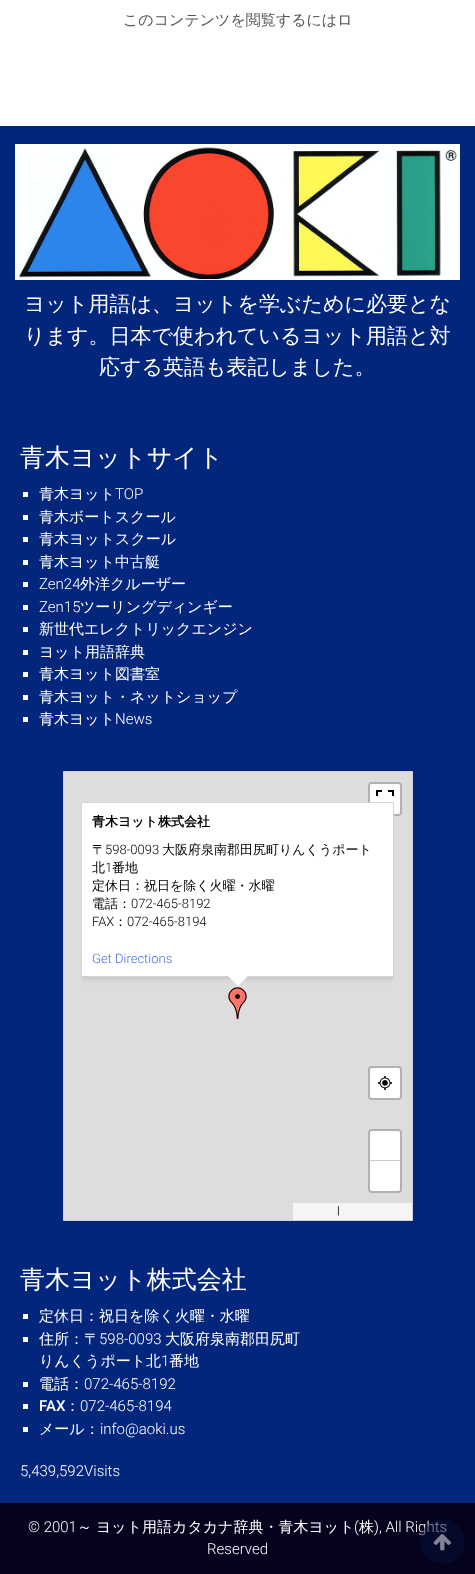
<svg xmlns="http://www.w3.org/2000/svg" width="475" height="1574">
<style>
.a{font:500 15px WenQuanYi Zen Hei;fill:#555}
.b{font:500 21px WenQuanYi Zen Hei;fill:#fff}
.c{font:500 25px WenQuanYi Zen Hei;fill:#fff}
.d{font:500 15px WenQuanYi Zen Hei;fill:#fff}
.e{font:300 15px Roboto;fill:#fff}
.f{font:bold 13px WenQuanYi Zen Hei;fill:#000}
.g{font:500 13px WenQuanYi Zen Hei;fill:#000}
.h{font:300 13px Roboto;fill:#000}
.i{font:300 13px Roboto;fill:#4272db}
.j{font:11px Roboto;fill:#000}
.k{font:500 15px Roboto;fill:#fff}
</style>
<defs>
<clipPath id="clip1"><path d="M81 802h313v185H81z"/></clipPath>
</defs>
<rect width="100%" height="100%" fill="#fff"/>
<path fill="#03267d" d="M0 126h475v1377H0z"/>
<image href="1.png" x="15" y="144" width="445" height="136"/>
<path fill="#fff" d="M23 492h5v5H23z"/>
<path fill="#fff" d="M23 515h5v5H23z"/>
<path fill="#fff" d="M23 537h5v5H23z"/>
<path fill="#fff" d="M23 560h5v5H23z"/>
<path fill="#fff" d="M23 582h5v5H23z"/>
<path fill="#fff" d="M23 605h5v5H23z"/>
<path fill="#fff" d="M23 627h5v5H23z"/>
<path fill="#fff" d="M23 650h5v5H23z"/>
<path fill="#fff" d="M23 672h5v5H23z"/>
<path fill="#fff" d="M23 695h5v5H23z"/>
<path fill="#fff" d="M23 717h5v5H23z"/>
<path fill="none" stroke="#d3d3d3" d="M63.5 771.5h349v449H63.5z"/>
<path fill="#ddd" d="M64 772h348v448H64z"/>
<rect fill="none" stroke="#b1b1b1" stroke-width="2" x="369" y="783" width="32" height="32" rx="3"/>
<rect fill="#fff" x="370" y="784" width="30" height="30" rx="2"/>
<image href="2.png" x="376" y="790" width="18" height="6"/>
<image href="4.png" x="228" y="987" width="19" height="32"/>
<g clip-path="url(#clip1)">
<path fill="#00000033" filter="blur(3.5px)" d="M81 802h313v175H81z"/>
</g>
<path fill="#fff" stroke="#d3d3d3" d="M81.5 802.5h312v174H81.5z"/>
<path fill="#fff" d="M228 976h20l-10 10z"/>
<rect fill="none" stroke="#b1b1b1" stroke-width="2" x="369" y="1067" width="32" height="32" rx="3"/>
<rect fill="#fff" x="370" y="1068" width="30" height="30" rx="2"/>
<image href="3.png" x="378" y="1076" width="14" height="14"/>
<rect fill="none" stroke="#b1b1b1" stroke-width="2" x="369" y="1130" width="32" height="62" rx="3"/>
<path fill="#fff" d="M372 1131h26c1 0 2 1 2 2v28h-30v-28c0-1 1-2 2-2z"/>
<path fill="#ccc" d="M370 1160h30v1H370z"/>
<path fill="#fff" d="M370 1161h30v28c0 1-1 2-2 2h-26c-1 0-2-1-2-2z"/>
<path fill="#f5f5f5" d="M293 1203h119v17H293z"/>
<path fill="#fff" d="M23 1314h5v5H23z"/>
<path fill="#fff" d="M23 1337h5v5H23z"/>
<path fill="#fff" d="M23 1382h5v5H23z"/>
<path fill="#fff" d="M23 1404h5v5H23z"/>
<path fill="#fff" d="M23 1427h5v5H23z"/>
<path fill="#04021d" d="M0 1503h475v71H0z"/>
<text class="a" x="123" y="25">このコンテンツを閲覧するにはロ</text>
<text class="b" x="24" y="311">ヨット用語は、ヨットを学ぶために必要とな</text>
<text class="b" x="24" y="343">ります。日本で使われているヨット用語と対</text>
<text class="b" x="99" y="374">応する英語も表記しました。</text>
<text class="c" x="20" y="466">青木ヨットサイト</text>
<text class="d" x="39" y="499">青木ヨット</text>
<text class="e" x="115" y="499">TOP</text>
<text class="d" x="39" y="522">青木ボートスクール</text>
<text class="d" x="39" y="544">青木ヨットスクール</text>
<text class="d" x="39" y="567">青木ヨット中古艇</text>
<text class="e" x="39" y="589">Zen24</text>
<text class="d" x="80" y="589">外洋クルーザー</text>
<text class="e" x="39" y="612">Zen15</text>
<text class="d" x="80" y="612">ツーリングディンギー</text>
<text class="d" x="39" y="634">新世代エレクトリックエンジン</text>
<text class="d" x="39" y="657">ヨット用語辞典</text>
<text class="d" x="39" y="679">青木ヨット図書室</text>
<text class="d" x="39" y="702">青木ヨット・ネットショップ</text>
<text class="d" x="39" y="724">青木ヨット</text>
<text class="e" x="115" y="724">News</text>
<text class="f" x="92" y="826">青木ヨット株式会社</text>
<text class="g" x="92" y="854">〒</text>
<text class="h" x="105" y="854">598-0093</text>
<text class="g" x="162" y="854">大阪府泉南郡田尻町りんくうポート</text>
<text class="g" x="92" y="872">北</text>
<text class="h" x="105" y="872">1</text>
<text class="g" x="112" y="872">番地</text>
<text class="g" x="92" y="890">定休日：祝日を除く火曜・水曜</text>
<text class="g" x="92" y="908">電話：</text>
<text class="h" x="131" y="908">072-465-8192</text>
<text class="h" x="92" y="926">FAX</text>
<text class="g" x="114" y="926">：</text>
<text class="h" x="127" y="926">072-465-8194</text>
<text class="i" x="92" y="963">Get Directions</text>
<text class="j" x="337" y="1214">|</text>
<text class="c" x="20" y="1288">青木ヨット株式会社</text>
<text class="d" x="39" y="1321">定休日：祝日を除く火曜・水曜</text>
<text class="d" x="39" y="1344">住所：〒</text>
<text class="e" x="99" y="1344">598-0093</text>
<text class="d" x="165" y="1344">大阪府泉南郡田尻町</text>
<text class="d" x="39" y="1366">りんくうポート北</text>
<text class="e" x="161" y="1366">1</text>
<text class="d" x="169" y="1366">番地</text>
<text class="d" x="39" y="1389">電話：</text>
<text class="e" x="84" y="1389">072-465-8192</text>
<text class="k" x="39" y="1411">FAX</text>
<text class="d" x="65" y="1411">：</text>
<text class="e" x="80" y="1411">072-465-8194</text>
<text class="d" x="39" y="1434">メール：</text>
<text class="e" x="100" y="1434">info@aoki.us</text>
<text class="e" x="20" y="1476">5,439,592Visits</text>
<text class="e" x="28" y="1532">© 2001</text>
<text class="d" x="77" y="1532">～</text>
<text class="d" x="96" y="1532">ヨット用語カタカナ辞典・青木ヨット</text>
<text class="e" x="354" y="1532">(</text>
<text class="d" x="359" y="1532">株</text>
<text class="e" x="374" y="1532">), All Rights</text>
<text class="e" x="207" y="1554">Reserved</text>
<circle fill="#05103980" cx="442.5" cy="1541.5" r="22.5"/>
<image href="5.png" x="433" y="1534" width="18" height="17"/>
</svg>
